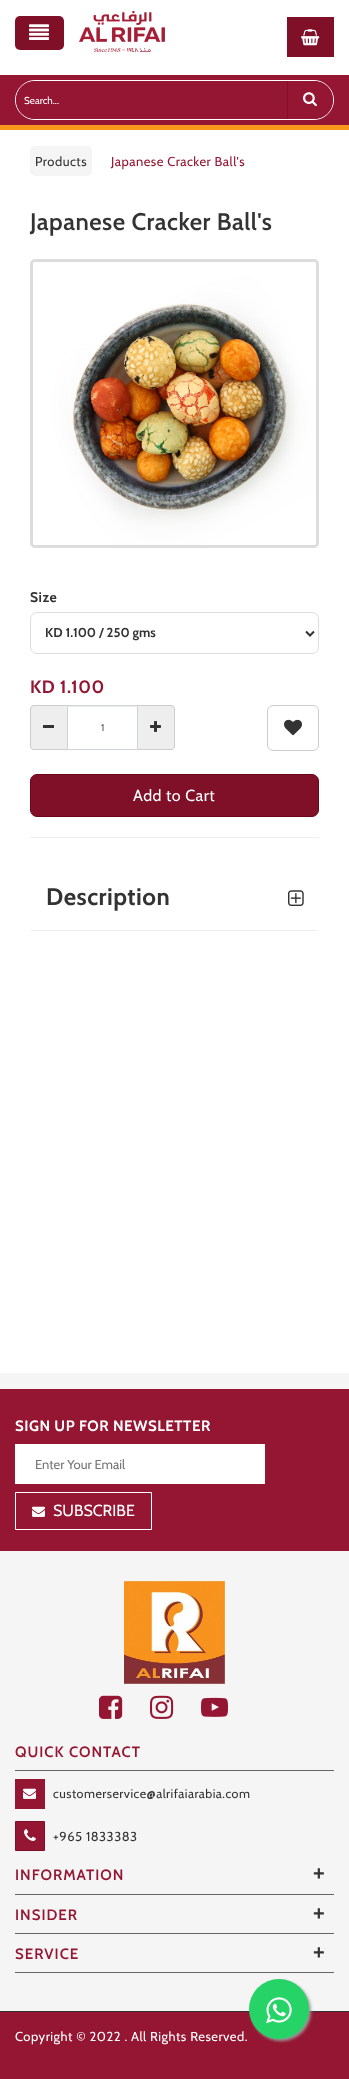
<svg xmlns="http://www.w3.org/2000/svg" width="349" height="2079">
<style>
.a{font:10px Cabin;fill:#fff}
.b{font:13px Cabin;letter-spacing:0.5px;fill:#333}
.c{font:13px Cabin;letter-spacing:0.5px;fill:#951632}
.d{font:600 24px Cabin;letter-spacing:0.5px;fill:#333}
.e{font:bold 14px Cabin;letter-spacing:0.5px;fill:#333}
.f{font:bold 13px Cabin;fill:#333}
.g{font:bold 18px Cabin;letter-spacing:0.5px;fill:#951632}
.h{font:10px Cabin;fill:#495057}
.i{font:16px Cabin;letter-spacing:0.5px;fill:#fff}
.j{font:bold 24px Cabin;letter-spacing:0.5px;fill:#333}
.k{font:bold 15px Cabin;letter-spacing:0.5px;fill:#fff}
.l{font:13px Cabin;fill:#757575}
.m{font:16px Cabin;fill:#fff}
.n{font:600 15px Cabin;letter-spacing:1px;fill:#951632}
.o{font:12.5px Cabin;letter-spacing:0.5px;fill:#333}
.p{font:bold 20px Liberation Sans;letter-spacing:1px;fill:#333}
.q{font:13px Cabin;letter-spacing:0.5px;fill:#fff}
</style>
<rect width="100%" height="100%" fill="#fff"/>
<rect fill="#7f1028" x="15" y="16" width="49" height="34" rx="5"/>
<image href="1.png" x="29" y="24" width="20" height="16"/>
<image href="2.png" x="79" y="11" width="86" height="41"/>
<path fill="#7f1028" d="M287 17h47v40H287z"/>
<image href="3.png" x="301" y="29" width="19" height="17"/>
<path fill="#f5f5f5" d="M0 1373h349v638H0z"/>
<path fill="#951632" d="M0 2012h349v67H0z"/>
<path fill="#333" d="M0 2011h349v1H0z"/>
<rect fill="#999" filter="blur(1.5px)" x="251" y="1981" width="60" height="60" rx="30"/>
<circle fill="#25d366" cx="279" cy="2009" r="30"/>
<image href="4.png" x="266" y="1997" width="26" height="27"/>
<path fill="#951632" d="M0 75h349v50H0z"/>
<path fill="#f8981c" d="M0 125h349v5H0z"/>
<rect fill="none" stroke="#fff" x="15.5" y="80.5" width="318" height="39" rx="19.5"/>
<path fill="#951632" d="M35 81h171v38h-171c-10.5 0-19-8.5-19-19c0-10.5 8.5-19 19-19z"/>
<path fill="#951632" d="M287 81h27c10.5 0 19 8.5 19 19c0 10.5-8.5 19-19 19h-27z"/>
<path fill="#7f1028" d="M287 81h1v38H287z"/>
<image href="5.png" x="303" y="92" width="14" height="15"/>
<rect fill="#f5f5f5" x="30" y="146" width="62" height="30" rx="5"/>
<rect fill="none" stroke="#ddd" stroke-width="3" x="31.5" y="260.5" width="286" height="286" rx="3.5"/>
<image href="6.png" x="33" y="262" width="283" height="283"/>
<rect fill="none" stroke="#ddd" x="30.5" y="612.5" width="288" height="41" rx="6.5"/>
<path fill="none" stroke="#333" stroke-width="2" d="M306 631.5l4 4l4-4"/>
<path fill="#eee" d="M34 705h33v45h-33c-2 0-4-2-4-4v-37c0-2 2-4 4-4z"/>
<path fill="#ccc" fill-rule="evenodd" d="M34 705h33v45h-33c-2 0-4-2-4-4v-37c0-2 2-4 4-4zm0 1h33v43h-33c-2 0-3-1-3-3v-37c0-2 1-3 3-3z"/>
<path fill="#333" d="M43 725h11v3H43z"/>
<path fill="#ececec" d="M68 706h69v1H68z"/>
<path fill="none" stroke="#ced4da" d="M67.5 705.5h70v44H67.5z"/>
<path fill="#eee" d="M138 705h33c2 0 4 2 4 4v37c0 2-2 4-4 4h-33z"/>
<path fill="#ccc" fill-rule="evenodd" d="M138 705h33c2 0 4 2 4 4v37c0 2-2 4-4 4h-33zm0 1h33c2 0 3 1 3 3v37c0 2-1 3-3 3h-33z"/>
<image href="7.png" x="150" y="721" width="11" height="11"/>
<rect fill="none" stroke="#ccc" x="267.5" y="705.5" width="51" height="45" rx="5.5"/>
<image href="8.png" x="284" y="719" width="18" height="17"/>
<rect fill="#7f1028" stroke="#6a051b" x="30.5" y="774.5" width="288" height="42" rx="6.5"/>
<path fill="#eee" d="M30 837h289v1H30z"/>
<path fill="#eee" d="M31 930h287v1H31z"/>
<image href="9.png" x="288" y="890" width="16" height="16"/>
<path fill="#951632" d="M0 1389h349v162H0z"/>
<path fill="#fff" d="M15 1444h250v40H15z"/>
<path fill="none" stroke="#fff" d="M15.5 1492.5h136v37H15.5z"/>
<image href="10.png" x="32" y="1506" width="13" height="11"/>
<image href="11.png" x="124" y="1581" width="101" height="103"/>
<image href="12.png" x="99" y="1695" width="24" height="24"/>
<image href="13.png" x="150" y="1695" width="24" height="24"/>
<image href="14.png" x="201" y="1697" width="27" height="20"/>
<path fill="#666" d="M15 1770h319v1H15z"/>
<path fill="#951632" d="M15 1779h30v30H15z"/>
<image href="10.png" x="23" y="1788" width="13" height="11"/>
<path fill="#951632" stroke="#7f1028" d="M15.5 1821.5h29v29H15.5z"/>
<image href="15.png" x="24" y="1829" width="12" height="12"/>
<path fill="#666" d="M15 1894h319v1H15z"/>
<path fill="#666" d="M15 1933h319v1H15z"/>
<path fill="#666" d="M15 1972h319v1H15z"/>
<text class="a" x="24" y="104">Search...</text>
<text class="b" x="35" y="166">Products</text>
<text class="c" x="111" y="166">Japanese Cracker Ball's</text>
<text class="d" x="30" y="230">Japanese Cracker Ball's</text>
<text class="e" x="30" y="602">Size</text>
<text class="f" x="45" y="637">KD 1.100 / 250 gms</text>
<text class="g" x="30" y="693">KD 1.100</text>
<text class="h" x="101" y="731">1</text>
<text class="i" x="133" y="801">Add to Cart</text>
<text class="j" x="46" y="905">Description</text>
<text class="k" x="15" y="1431">SIGN UP FOR NEWSLETTER</text>
<text class="l" x="35" y="1469">Enter Your Email</text>
<text class="m" x="53" y="1516">SUBSCRIBE</text>
<text class="n" x="15" y="1757">QUICK CONTACT</text>
<text class="o" x="53" y="1798">customerservice@alrifaiarabia.com</text>
<text class="b" x="53" y="1841">+965 1833383</text>
<text class="n" x="15" y="1880">INFORMATION</text>
<text class="p" x="313" y="1880">+</text>
<text class="n" x="15" y="1920">INSIDER</text>
<text class="p" x="313" y="1920">+</text>
<text class="n" x="15" y="1959">SERVICE</text>
<text class="p" x="313" y="1959">+</text>
<text class="q" x="15" y="2041">Copyright © 2022 . All Rights Reserved.</text>
</svg>
